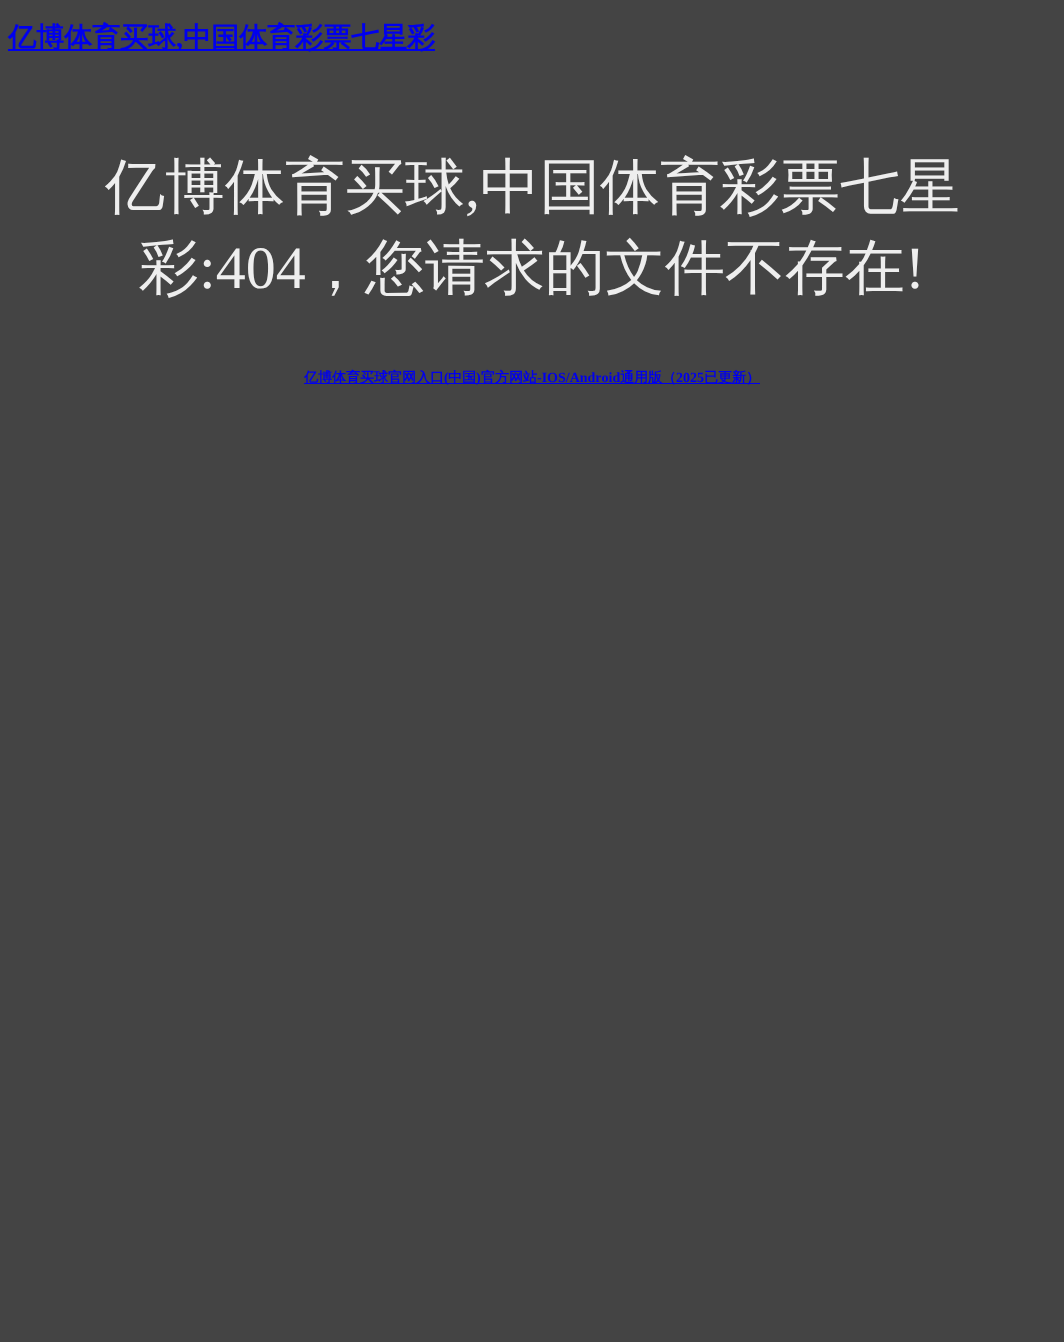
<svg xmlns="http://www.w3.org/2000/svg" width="1064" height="1342">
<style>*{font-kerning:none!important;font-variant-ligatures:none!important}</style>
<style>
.a{font:bold 28px WenQuanYi Zen Hei;fill:#00e}
.b{font:bold 28px Liberation Serif;fill:#00e}
.c{font:500 60px WenQuanYi Zen Hei;fill:#eee}
.d{font:60px Liberation Serif;fill:#eee}
.e{font:bold 14px WenQuanYi Zen Hei;fill:#00e}
.f{font:bold 14px Liberation Serif;fill:#00e}
</style>
<rect width="100%" height="100%" fill="#444"/>
<path fill="#00e" d="M8 49h427v2H8z"/>
<path fill="#00e" d="M304 383h456v1H304z"/>
<text class="a" x="8" y="47">亿博体育买球</text>
<text class="b" x="176" y="47">,</text>
<text class="a" x="183" y="47">中国体育彩票七星彩</text>
<text class="c" x="105" y="207">亿博体育买球</text>
<text class="d" x="465" y="207">,</text>
<text class="c" x="480" y="207">中国体育彩票七星</text>
<text class="c" x="139" y="288">彩</text>
<text class="d" x="199" y="288">:404</text>
<text class="c" x="305" y="288">，您请求的文件不存在</text>
<text class="d" x="905" y="288">!</text>
<text class="e" x="304" y="382">亿博体育买球官网入口</text>
<text class="f" x="444" y="382">(</text>
<text class="e" x="448" y="382">中国</text>
<text class="f" x="476" y="382">)</text>
<text class="e" x="481" y="382">官方网站</text>
<text class="f" x="537" y="382">-IOS/Android</text>
<text class="e" x="620" y="382">通用版（</text>
<text class="f" x="676" y="382">2025</text>
<text class="e" x="704" y="382">已更新）</text>
</svg>
